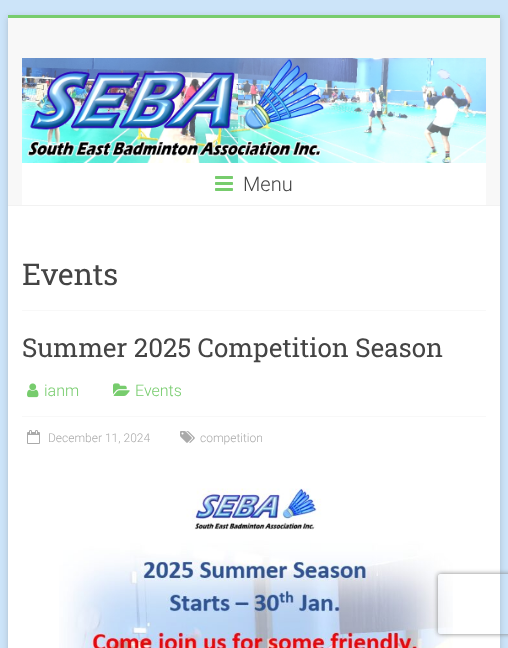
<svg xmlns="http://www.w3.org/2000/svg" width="508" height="648">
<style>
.a{font:300 20px Roboto;fill:#444}
.b{font:30px Roboto Slab;fill:#444}
.c{font:26px Roboto Slab;fill:#444}
.d{font:300 16px Roboto;fill:#77cc6d}
.e{font:300 12px Roboto;fill:#aaa}
</style>
<defs>
<clipPath id="clip1"><path d="M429 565h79v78h-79zm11 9h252c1 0 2 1 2 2v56c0 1-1 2-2 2h-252c-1 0-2-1-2-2v-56c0-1 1-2 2-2z" clip-rule="evenodd"/></clipPath>
</defs>
<rect width="100%" height="100%" fill="#cce4f9"/>
<path fill="#6464644d" filter="blur(3px)" d="M8 17h492v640H8z"/>
<path fill="#fff" d="M8 206h492v442H8z"/>
<path fill="#77cc6d" d="M8 15h492v3H8z"/>
<path fill="#f8f8f8" d="M8 18h492v187H8z"/>
<path fill="#f2f2f2" d="M8 205h492v1H8z"/>
<image href="1.png" x="22" y="58" width="464" height="105"/>
<path fill="#fff" d="M22 163h464v42H22z"/>
<image href="2.png" x="215" y="176" width="18" height="15"/>
<path fill="#f8f8f8" d="M22 310h464v1H22z"/>
<image href="3.png" x="27" y="383" width="12" height="15"/>
<image href="4.png" x="113" y="383" width="17" height="13"/>
<path fill="#f8f8f8" d="M22 416h464v1H22z"/>
<image href="5.png" x="27" y="430" width="13" height="14"/>
<image href="6.png" x="180" y="431" width="15" height="12"/>
<image href="7.png" x="59" y="488" width="394" height="160"/>
<g clip-path="url(#clip1)">
<rect fill="#808080" filter="blur(2.5px)" x="438" y="574" width="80" height="60" rx="2"/>
</g>
<text class="a" x="243" y="191">Menu</text>
<text class="b" x="22" y="285">Events</text>
<text class="c" x="22" y="357">Summer 2025 Competition Season</text>
<text class="d" x="44" y="396">ianm</text>
<text class="d" x="135" y="396">Events</text>
<text class="e" x="48" y="442">December 11, 2024</text>
<text class="e" x="200" y="442">competition</text>
</svg>
